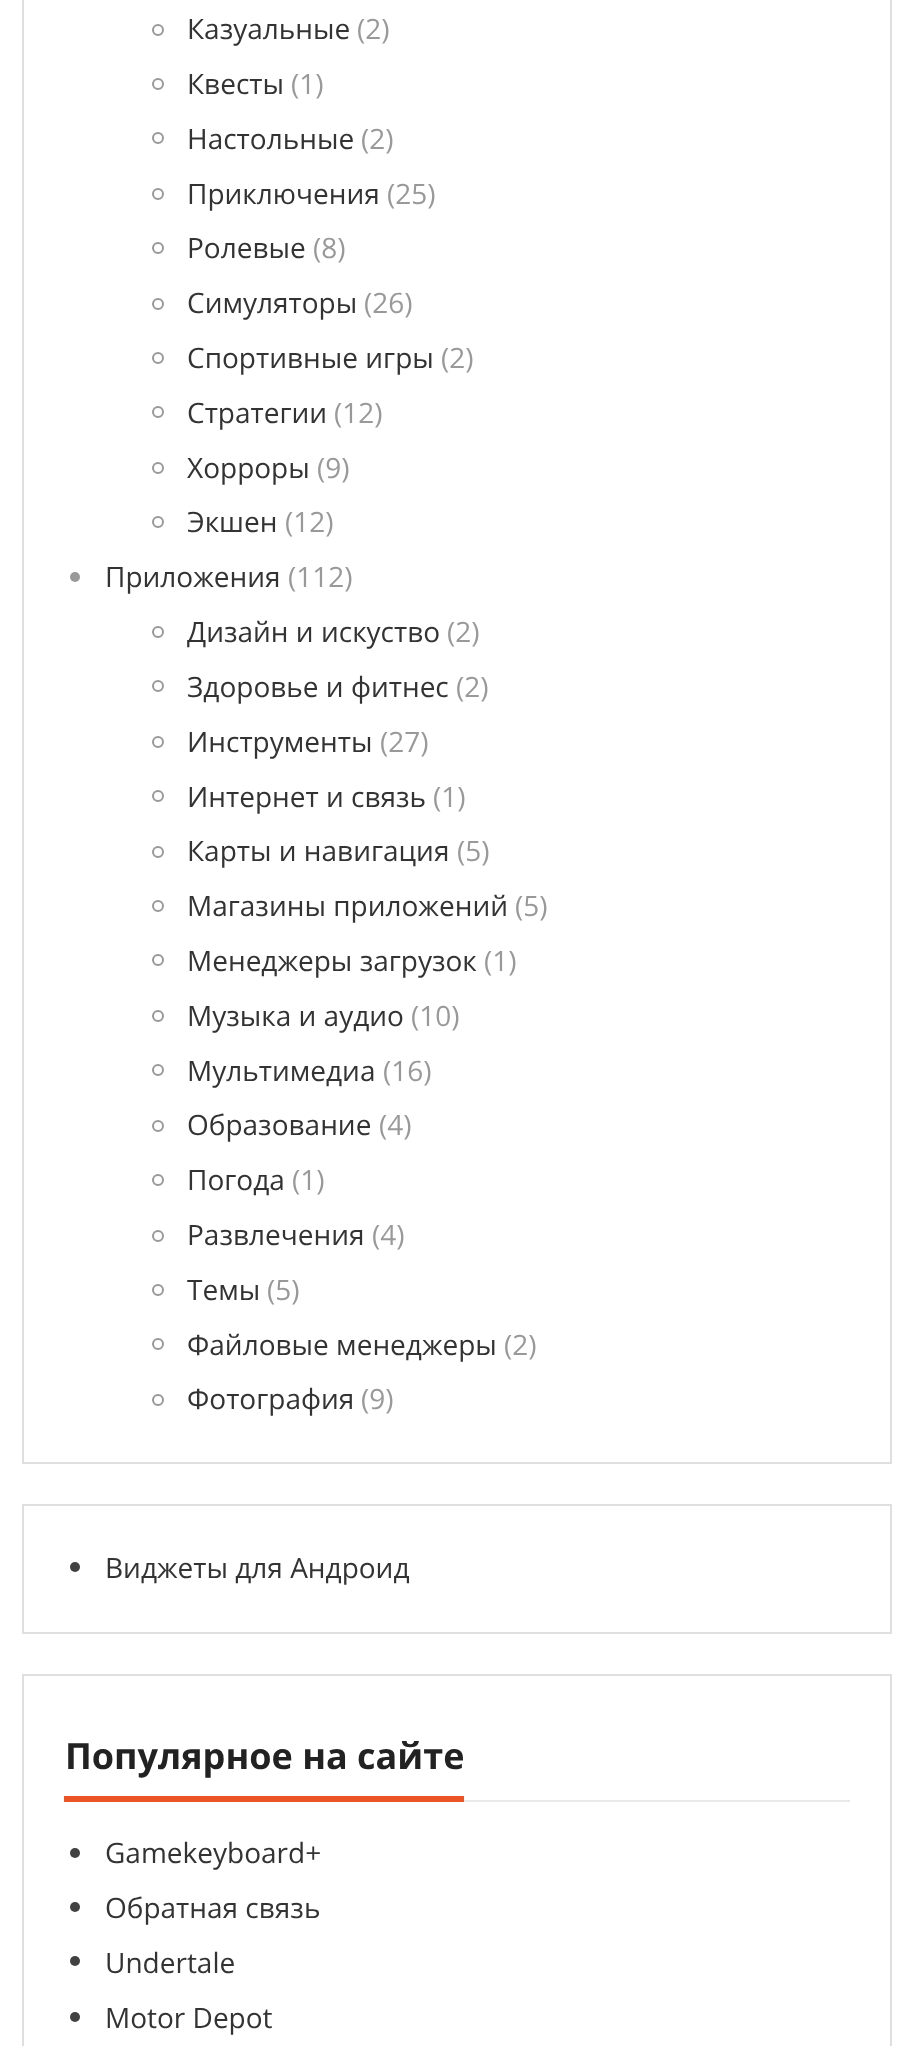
<svg xmlns="http://www.w3.org/2000/svg" width="914" height="2046">
<style>
.a{font:28px Open Sans;fill:#333}
.b{font:28px Open Sans;fill:#999}
.c{font:bold 36px Open Sans;fill:#222}
</style>
<rect width="100%" height="100%" fill="#fff"/>
<path fill="none" stroke="#dfdfdf" stroke-width="2" d="M23 -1h868v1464H23z"/>
<circle fill="none" stroke="#999" stroke-width="2" cx="158" cy="30" r="5"/>
<circle fill="none" stroke="#999" stroke-width="2" cx="158" cy="84" r="5"/>
<circle fill="none" stroke="#999" stroke-width="2" cx="158" cy="138" r="5"/>
<circle fill="none" stroke="#999" stroke-width="2" cx="158" cy="194" r="5"/>
<circle fill="none" stroke="#999" stroke-width="2" cx="158" cy="248" r="5"/>
<circle fill="none" stroke="#999" stroke-width="2" cx="158" cy="304" r="5"/>
<circle fill="none" stroke="#999" stroke-width="2" cx="158" cy="358" r="5"/>
<circle fill="none" stroke="#999" stroke-width="2" cx="158" cy="412" r="5"/>
<circle fill="none" stroke="#999" stroke-width="2" cx="158" cy="468" r="5"/>
<circle fill="none" stroke="#999" stroke-width="2" cx="158" cy="522" r="5"/>
<circle fill="#999" cx="75" cy="577" r="5"/>
<circle fill="none" stroke="#999" stroke-width="2" cx="158" cy="632" r="5"/>
<circle fill="none" stroke="#999" stroke-width="2" cx="158" cy="686" r="5"/>
<circle fill="none" stroke="#999" stroke-width="2" cx="158" cy="742" r="5"/>
<circle fill="none" stroke="#999" stroke-width="2" cx="158" cy="796" r="5"/>
<circle fill="none" stroke="#999" stroke-width="2" cx="158" cy="852" r="5"/>
<circle fill="none" stroke="#999" stroke-width="2" cx="158" cy="906" r="5"/>
<circle fill="none" stroke="#999" stroke-width="2" cx="158" cy="960" r="5"/>
<circle fill="none" stroke="#999" stroke-width="2" cx="158" cy="1016" r="5"/>
<circle fill="none" stroke="#999" stroke-width="2" cx="158" cy="1070" r="5"/>
<circle fill="none" stroke="#999" stroke-width="2" cx="158" cy="1126" r="5"/>
<circle fill="none" stroke="#999" stroke-width="2" cx="158" cy="1180" r="5"/>
<circle fill="none" stroke="#999" stroke-width="2" cx="158" cy="1236" r="5"/>
<circle fill="none" stroke="#999" stroke-width="2" cx="158" cy="1290" r="5"/>
<circle fill="none" stroke="#999" stroke-width="2" cx="158" cy="1344" r="5"/>
<circle fill="none" stroke="#999" stroke-width="2" cx="158" cy="1400" r="5"/>
<path fill="none" stroke="#dfdfdf" stroke-width="2" d="M23 1505h868v128H23z"/>
<circle fill="#414141" cx="75" cy="1567" r="5"/>
<path fill="#dfdfdf" d="M22 1674h870v2H22z"/>
<path fill="#dfdfdf" d="M890 1674h2v372H890z"/>
<path fill="#dfdfdf" d="M22 1674h2v372H22z"/>
<path fill="#e9e9e9" d="M464 1800h386v2H464z"/>
<path fill="#eb5424" d="M64 1796h400v6H64z"/>
<circle fill="#414141" cx="75" cy="1853" r="5"/>
<circle fill="#414141" cx="75" cy="1907" r="5"/>
<circle fill="#414141" cx="75" cy="1961" r="5"/>
<circle fill="#414141" cx="75" cy="2017" r="5"/>
<text class="a" x="187" y="39">Казуальные</text>
<text class="b" x="357" y="39">(2)</text>
<text class="a" x="187" y="94">Квесты</text>
<text class="b" x="291" y="94">(1)</text>
<text class="a" x="187" y="149">Настольные</text>
<text class="b" x="361" y="149">(2)</text>
<text class="a" x="187" y="204">Приключения</text>
<text class="b" x="387" y="204">(25)</text>
<text class="a" x="187" y="258">Ролевые</text>
<text class="b" x="313" y="258">(8)</text>
<text class="a" x="187" y="313">Симуляторы</text>
<text class="b" x="364" y="313">(26)</text>
<text class="a" x="187" y="368">Спортивные игры</text>
<text class="b" x="441" y="368">(2)</text>
<text class="a" x="187" y="423">Стратегии</text>
<text class="b" x="334" y="423">(12)</text>
<text class="a" x="187" y="478">Хорроры</text>
<text class="b" x="317" y="478">(9)</text>
<text class="a" x="187" y="532">Экшен</text>
<text class="b" x="285" y="532">(12)</text>
<text class="a" x="105" y="587">Приложения</text>
<text class="b" x="288" y="587">(112)</text>
<text class="a" x="187" y="642">Дизайн и искуство</text>
<text class="b" x="447" y="642">(2)</text>
<text class="a" x="187" y="697">Здоровье и фитнес</text>
<text class="b" x="456" y="697">(2)</text>
<text class="a" x="187" y="752">Инструменты</text>
<text class="b" x="380" y="752">(27)</text>
<text class="a" x="187" y="807">Интернет и связь</text>
<text class="b" x="433" y="807">(1)</text>
<text class="a" x="187" y="861">Карты и навигация</text>
<text class="b" x="457" y="861">(5)</text>
<text class="a" x="187" y="916">Магазины приложений</text>
<text class="b" x="515" y="916">(5)</text>
<text class="a" x="187" y="971">Менеджеры загрузок</text>
<text class="b" x="484" y="971">(1)</text>
<text class="a" x="187" y="1026">Музыка и аудио</text>
<text class="b" x="411" y="1026">(10)</text>
<text class="a" x="187" y="1081">Мультимедиа</text>
<text class="b" x="383" y="1081">(16)</text>
<text class="a" x="187" y="1135">Образование</text>
<text class="b" x="379" y="1135">(4)</text>
<text class="a" x="187" y="1190">Погода</text>
<text class="b" x="292" y="1190">(1)</text>
<text class="a" x="187" y="1245">Развлечения</text>
<text class="b" x="372" y="1245">(4)</text>
<text class="a" x="187" y="1300">Темы</text>
<text class="b" x="267" y="1300">(5)</text>
<text class="a" x="187" y="1355">Файловые менеджеры</text>
<text class="b" x="504" y="1355">(2)</text>
<text class="a" x="187" y="1409">Фотография</text>
<text class="b" x="361" y="1409">(9)</text>
<text class="a" x="105" y="1578">Виджеты для Андроид</text>
<text class="c" x="65" y="1769">Популярное на сайте</text>
<text class="a" x="105" y="1863">Gamekeyboard+</text>
<text class="a" x="105" y="1918">Обратная связь</text>
<text class="a" x="105" y="1973">Undertale</text>
<text class="a" x="105" y="2028">Motor Depot</text>
</svg>
